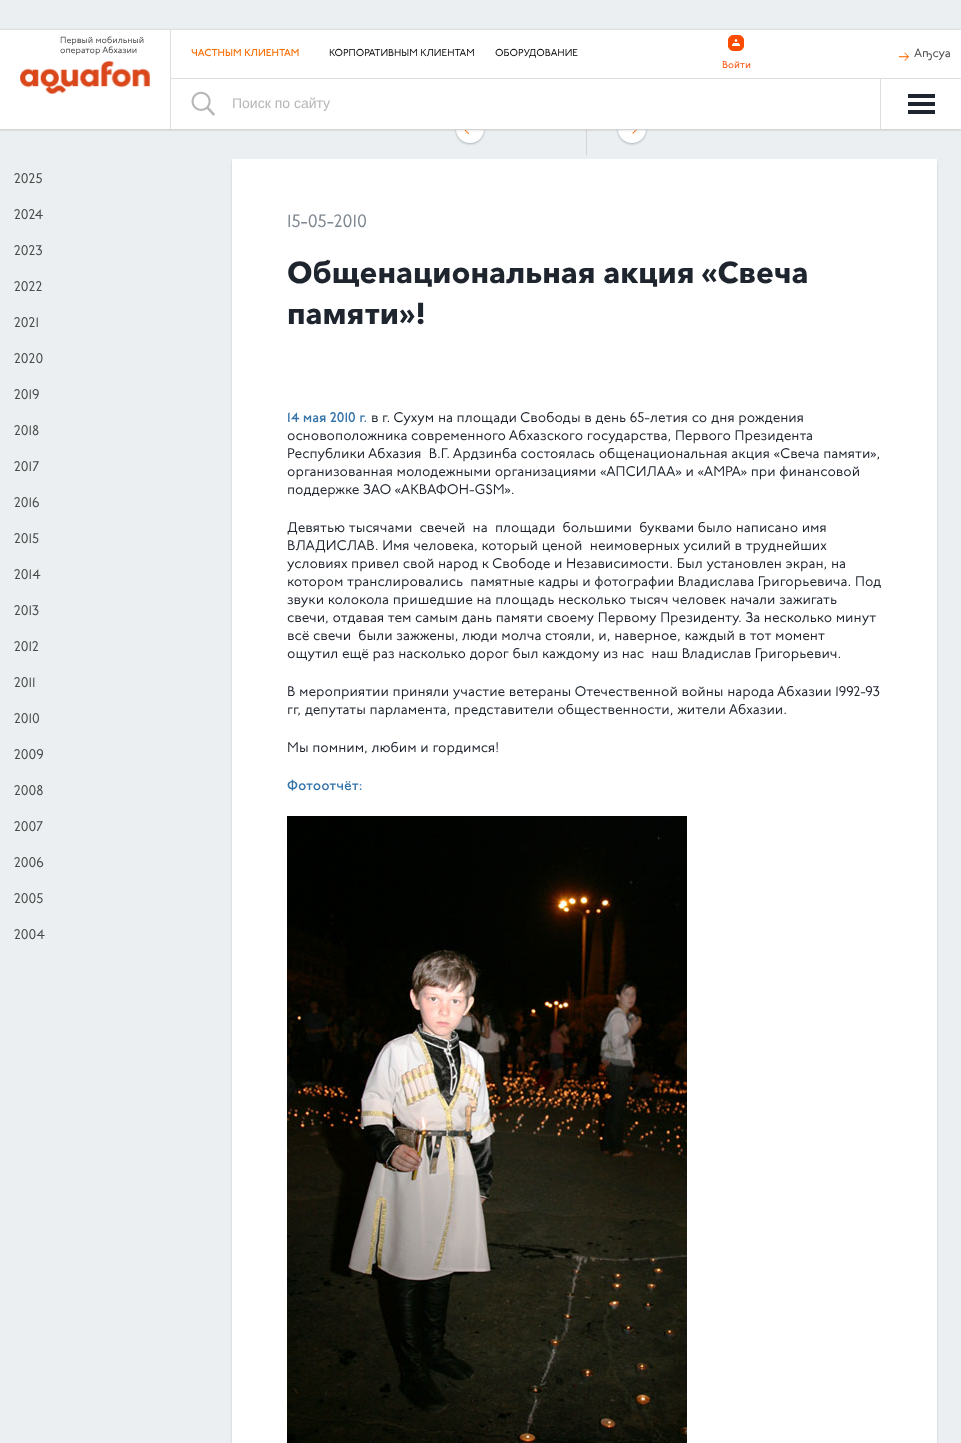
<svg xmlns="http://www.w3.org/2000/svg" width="961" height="1443">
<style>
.a{font:9px 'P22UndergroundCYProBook';fill:#4a4a4a}
.b{font:500 10px 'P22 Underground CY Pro';fill:#fb6f07}
.c{font:10px 'P22UndergroundCYProBook';fill:#000}
.d{font:12px 'P22UndergroundCYProBook';fill:#4a4a4a}
.e{font:10px 'P22UndergroundCYProBook';fill:#fc4c02}
.f{font:14px Liberation Sans;fill:#b6b6b6}
.g{font:14px 'P22UndergroundCYProBook';fill:#4a4a4a}
.h{font:18px 'P22UndergroundCYProBook';fill:#7f8891}
.i{font:bold 30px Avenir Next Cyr;fill:#1f252e}
.j{font:500 14px 'P22 Underground CY Pro';fill:#3574a9}
.k{font:14px 'P22UndergroundCYProBook';fill:#1f252e}
</style>
<rect width="100%" height="100%" fill="#ebeff1"/>
<rect fill="#a9b3b7" filter="blur(1px)" x="456" y="116" width="28" height="28" rx="14"/>
<circle fill="#fff" cx="470" cy="129" r="14"/>
<image href="5.png" x="464" y="130" width="5" height="4"/>
<path fill="#d4d4d4" d="M586 130h1v25H586z"/>
<rect fill="#a9b3b7" filter="blur(1px)" x="618" y="116" width="28" height="28" rx="14"/>
<circle fill="#fff" cx="632" cy="129" r="14"/>
<image href="6.png" x="632" y="130" width="5" height="4"/>
<path fill="#00000030" filter="blur(1px)" d="M0 30h961v100H0z"/>
<path fill="#fff" d="M0 30h961v99H0z"/>
<path fill="#d4d4d4" d="M0 129h961v1H0z"/>
<path fill="#dedede" d="M170 30h1v99H170z"/>
<image href="1.png" x="20" y="61" width="130" height="33"/>
<path fill="#dedede" d="M171 78h790v1H171z"/>
<image href="2.png" x="899" y="52" width="10" height="9"/>
<image href="3.png" x="728" y="35" width="16" height="16"/>
<image href="4.png" x="191" y="91" width="24" height="25"/>
<path fill="#dedede" d="M880 79h1v50H880z"/>
<path fill="#1f252e" d="M908 94h27v4H908z"/>
<path fill="#1f252e" d="M908 102h27v4H908z"/>
<path fill="#1f252e" d="M908 110h27v4H908z"/>
<path fill="#788ea461" filter="blur(1px)" d="M232 161h705v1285H232z"/>
<path fill="#fff" d="M232 159h705v1284H232z"/>
<image href="7.png" x="287" y="816" width="400" height="627"/>
<text class="a" x="60" y="43">Первый мобильный</text>
<text class="a" x="60" y="53">оператор Абхазии</text>
<text class="b" x="191" y="56">ЧАСТНЫМ КЛИЕНТАМ</text>
<text class="c" x="329" y="56">КОРПОРАТИВНЫМ КЛИЕНТАМ</text>
<text class="c" x="495" y="56">ОБОРУДОВАНИЕ</text>
<text class="d" x="914" y="57">Аҧсуа</text>
<text class="e" x="722" y="68">Войти</text>
<text class="f" x="232" y="108">Поиск по сайту</text>
<text class="g" x="14" y="183">2025</text>
<text class="g" x="14" y="219">2024</text>
<text class="g" x="14" y="255">2023</text>
<text class="g" x="14" y="291">2022</text>
<text class="g" x="14" y="327">2021</text>
<text class="g" x="14" y="363">2020</text>
<text class="g" x="14" y="399">2019</text>
<text class="g" x="14" y="435">2018</text>
<text class="g" x="14" y="471">2017</text>
<text class="g" x="14" y="507">2016</text>
<text class="g" x="14" y="543">2015</text>
<text class="g" x="14" y="579">2014</text>
<text class="g" x="14" y="615">2013</text>
<text class="g" x="14" y="651">2012</text>
<text class="g" x="14" y="687">2011</text>
<text class="g" x="14" y="723">2010</text>
<text class="g" x="14" y="759">2009</text>
<text class="g" x="14" y="795">2008</text>
<text class="g" x="14" y="831">2007</text>
<text class="g" x="14" y="867">2006</text>
<text class="g" x="14" y="903">2005</text>
<text class="g" x="14" y="939">2004</text>
<text class="h" x="287" y="227">15-05-2010</text>
<text class="i" x="287" y="283">Общенациональная акция «Свеча</text>
<text class="i" x="287" y="324">памяти»!</text>
<text class="j" x="287" y="422">14 мая 2010 г.</text>
<text class="k" x="371" y="422">в г. Сухум на площади Свободы в день 65-летия со дня рождения</text>
<text class="k" x="287" y="440">основоположника современного Абхазского государства, Первого Президента</text>
<text class="k" xml:space="preserve" x="287" y="458">Республики Абхазия  В.Г. Ардзинба состоялась общенациональная акция «Свеча памяти»,</text>
<text class="k" x="287" y="476">организованная молодежными организациями «АПСИЛАА» и «АМРА» при финансовой</text>
<text class="k" x="287" y="494">поддержке ЗАО «АКВАФОН-GSM».</text>
<text class="k" xml:space="preserve" x="287" y="532">Девятью тысячами  свечей  на  площади  большими  буквами было написано имя</text>
<text class="k" xml:space="preserve" x="287" y="550">ВЛАДИСЛАВ. Имя человека, который ценой  неимоверных усилий в труднейших</text>
<text class="k" x="287" y="568">условиях привел свой народ к Свободе и Независимости. Был установлен экран, на</text>
<text class="k" xml:space="preserve" x="287" y="586">котором транслировались  памятные кадры и фотографии Владислава Григорьевича. Под</text>
<text class="k" x="287" y="604">звуки колокола пришедшие на площадь несколько тысяч человек начали зажигать</text>
<text class="k" x="287" y="622">свечи, отдавая тем самым дань памяти своему Первому Президенту. За несколько минут</text>
<text class="k" xml:space="preserve" x="287" y="640">всё свечи  были зажжены, люди молча стояли, и, наверное, каждый в тот момент</text>
<text class="k" xml:space="preserve" x="287" y="658">ощутил ещё раз насколько дорог был каждому из нас  наш Владислав Григорьевич.</text>
<text class="k" x="287" y="696">В мероприятии приняли участие ветераны Отечественной войны народа Абхазии 1992-93</text>
<text class="k" x="287" y="714">гг, депутаты парламента, представители общественности, жители Абхазии.</text>
<text class="k" x="287" y="752">Мы помним, любим и гордимся!</text>
<text class="j" x="287" y="790">Фотоотчёт:</text>
</svg>
